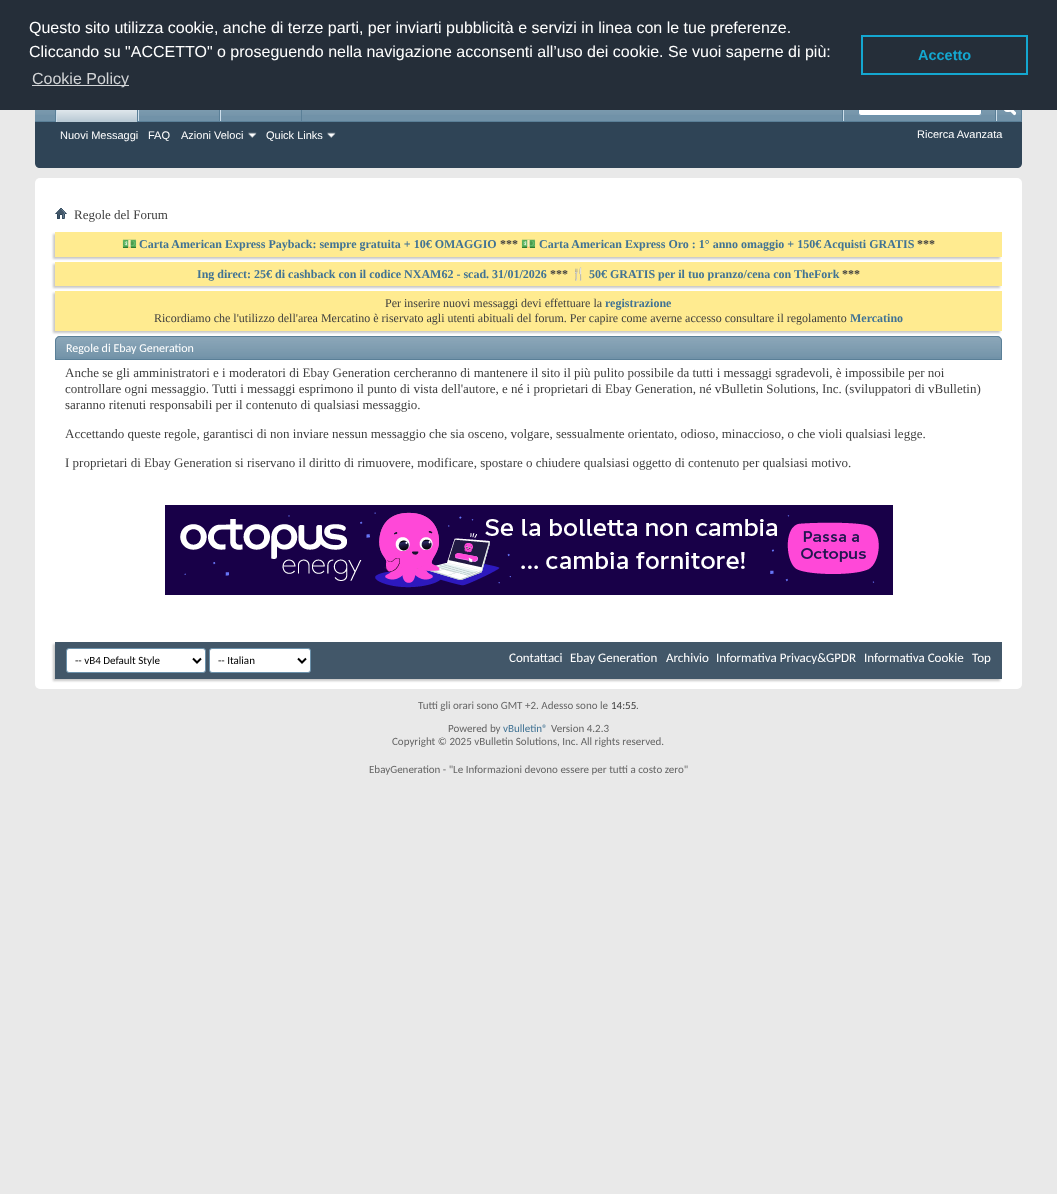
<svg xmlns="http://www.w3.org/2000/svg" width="1057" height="1194">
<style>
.a{font:16px Liberation Sans;fill:#fff}
.b{font:16px Liberation Sans;fill:#d3d5d7}
.c{font:bold 14.5px Liberation Sans;fill:#14a7d0}
.d{font:11px Liberation Sans;fill:#fff}
.e{font:13px Liberation Serif;fill:#3e3e3e}
.f{font:bold 12px Noto Color Emoji;fill:#417394}
.g{font:bold 12px Liberation Serif;fill:#417394}
.h{font:bold 12px Liberation Serif;fill:#3e3e3e}
.i{font:12px Liberation Serif;fill:#3e3e3e}
.j{font:12px Carlito;fill:#fff}
.k{font:11px Carlito;fill:#000}
.l{font:13px Carlito;fill:#fff}
.m{font:11px Carlito;fill:#666}
.n{font:11px Carlito;fill:#3e3e3e}
.o{font:11px Carlito;fill:#417394}
</style>
<rect width="100%" height="100%" fill="#e9e9e9"/>
<path fill="#2f4456" d="M35 0h987v163c0 3-2 5-5 5h-977c-3 0-5-2-5-5z"/>
<path fill="#7192a8" d="M35 110h986v11H35z"/>
<image href="1.png" x="35" y="110" width="986" height="5"/>
<rect fill="#fff" stroke="#6b91ab" x="858.5" y="99.5" width="123" height="16" rx="2.5"/>
<path fill="#252e39" d="M0 0h1057v110H0z"/>
<path fill="#d3d5d7" d="M32 85h97v1H32z"/>
<path fill="none" stroke="#14a7d0" stroke-width="2" d="M862 36h165v38H862z"/>
<path fill="#5a7f97" d="M137 110h1v11H137z"/>
<path fill="#5a7f97" d="M55 110h1v11H55z"/>
<path fill="#5a7f97" d="M219 110h1v12H219z"/>
<path fill="#cedfeb" d="M138 110h1v12H138z"/>
<path fill="#5a7f97" d="M301 110h1v12H301z"/>
<path fill="#cedfeb" d="M220 110h1v12H220z"/>
<path fill="#5a7f97" d="M35 121h987v1H35z"/>
<path fill="#7192a8" d="M57 110h80v12H57z"/>
<image href="2.png" x="57" y="110" width="80" height="12"/>
<path fill="#cedfeb" d="M56 110h1v12H56z"/>
<path fill="#7192a8" d="M139 110h80v5H139z"/>
<image href="3.png" x="139" y="110" width="80" height="6"/>
<path fill="#7192a8" d="M221 110h80v5H221z"/>
<image href="3.png" x="221" y="110" width="80" height="6"/>
<image href="4.png" x="248" y="132" width="9" height="6"/>
<image href="4.png" x="327" y="132" width="9" height="6"/>
<path fill="#5a7f97" d="M842 110h1v11H842z"/>
<path fill="#cedfeb" d="M843 110h1v11H843z"/>
<path fill="#5a7f97" d="M1021 110h1v11H1021z"/>
<path fill="#5a7f97" d="M995 110h1v11H995z"/>
<path fill="#cedfeb" d="M996 110h1v11H996z"/>
<image href="5.png" x="1004" y="110" width="12" height="6"/>
<rect fill="#fff" x="35" y="178" width="987" height="511" rx="5"/>
<image href="6.png" x="55" y="208" width="12" height="11"/>
<path fill="#c8c8c8" filter="blur(1px)" d="M53 234h947v25H53z"/>
<path fill="#ffeb90" d="M55 232h947v25H55z"/>
<path fill="#c8c8c8" filter="blur(1px)" d="M53 264h947v24H53z"/>
<path fill="#ffeb90" d="M55 262h947v24H55z"/>
<path fill="#c8c8c8" filter="blur(1px)" d="M53 293h947v40H53z"/>
<path fill="#ffeb90" d="M55 291h947v40H55z"/>
<path fill="#7192a8" d="M60 336h937c3 0 5 2 5 5v19h-947v-19c0-3 2-5 5-5z"/>
<image href="7.png" x="55" y="337" width="947" height="20"/>
<path fill="none" stroke="#5a7f97" d="M60 336.5h937c2.5 0 4.5 2 4.5 4.5v18.5h-946v-18.5c0-2.5 2-4.5 4.5-4.5z"/>
<image href="8.png" x="165" y="505" width="728" height="90"/>
<path fill="#c8c8c8" filter="blur(1px)" d="M53 644h947v37H53z"/>
<path fill="#425769" d="M55 642h947v37H55z"/>
<rect fill="#fff" stroke="#6b91ab" x="66.5" y="648.5" width="139" height="24" rx="2.5"/>
<path fill="none" stroke="#000" stroke-width="2" d="M193 658.5l4 4l4-4"/>
<rect fill="#fff" stroke="#6b91ab" x="209.5" y="648.5" width="101" height="24" rx="2.5"/>
<path fill="none" stroke="#000" stroke-width="2" d="M298 658.5l4 4l4-4"/>
<text class="a" x="29" y="33">Questo sito utilizza cookie, anche di terze parti, per inviarti pubblicità e servizi in linea con le tue preferenze.</text>
<text class="a" x="29" y="57">Cliccando su "ACCETTO" o proseguendo nella navigazione acconsenti all’uso dei cookie. Se vuoi saperne di più:</text>
<text class="b" x="32" y="84">Cookie Policy</text>
<text class="c" x="918" y="60">Accetto</text>
<text class="d" x="60" y="139">Nuovi Messaggi</text>
<text class="d" x="148" y="139">FAQ</text>
<text class="d" x="181" y="139">Azioni Veloci</text>
<text class="d" x="266" y="139">Quick Links</text>
<text class="d" x="917" y="138">Ricerca Avanzata</text>
<text class="e" x="74" y="219">Regole del Forum</text>
<text class="f" x="122" y="248">💵</text>
<text class="g" x="139" y="248">Carta American Express Payback: sempre gratuita + 10€ OMAGGIO</text>
<text class="h" x="500" y="248">***</text>
<text class="f" x="521" y="248">💵</text>
<text class="g" x="539" y="248">Carta American Express Oro : 1° anno omaggio + 150€ Acquisti GRATIS</text>
<text class="h" x="917" y="248">***</text>
<text class="g" x="197" y="278">Ing direct: 25€ di cashback con il codice NXAM62 - scad. 31/01/2026</text>
<text class="h" x="550" y="278">***</text>
<text class="f" x="571" y="278">🍴</text>
<text class="g" x="589" y="278">50€ GRATIS per il tuo pranzo/cena con TheFork</text>
<text class="h" x="842" y="278">***</text>
<text class="i" x="385" y="307">Per inserire nuovi messaggi devi effettuare la</text>
<text class="g" x="605" y="307">registrazione</text>
<text class="i" x="154" y="322">Ricordiamo che l'utilizzo dell'area Mercatino è riservato agli utenti abituali del forum. Per capire come averne accesso consultare il regolamento</text>
<text class="g" x="850" y="322">Mercatino</text>
<text class="j" x="66" y="352">Regole di Ebay Generation</text>
<text class="e" x="65" y="377">Anche se gli amministratori e i moderatori di Ebay Generation cercheranno di mantenere il sito il più pulito possibile da tutti i messaggi sgradevoli, è impossibile per noi</text>
<text class="e" x="65" y="393">controllare ogni messaggio. Tutti i messaggi esprimono il punto di vista dell'autore, e né i proprietari di Ebay Generation, né vBulletin Solutions, Inc. (sviluppatori di vBulletin)</text>
<text class="e" x="65" y="409">saranno ritenuti responsabili per il contenuto di qualsiasi messaggio.</text>
<text class="e" x="65" y="438">Accettando queste regole, garantisci di non inviare nessun messaggio che sia osceno, volgare, sessualmente orientato, odioso, minaccioso, o che violi qualsiasi legge.</text>
<text class="e" x="65" y="467">I proprietari di Ebay Generation si riservano il diritto di rimuovere, modificare, spostare o chiudere qualsiasi oggetto di contenuto per qualsiasi motivo.</text>
<text class="k" x="75" y="664">-- vB4 Default Style</text>
<text class="k" x="218" y="664">-- Italian</text>
<text class="l" x="509" y="662">Contattaci</text>
<text class="l" x="570" y="662">Ebay Generation</text>
<text class="l" x="666" y="662">Archivio</text>
<text class="l" x="716" y="662">Informativa Privacy&amp;GPDR</text>
<text class="l" x="864" y="662">Informativa Cookie</text>
<text class="l" x="972" y="662">Top</text>
<text class="m" x="418" y="709">Tutti gli orari sono GMT +2. Adesso sono le</text>
<text class="n" x="611" y="709">14:55</text>
<text class="m" x="636" y="709">.</text>
<text class="m" x="448" y="732">Powered by</text>
<text class="o" x="503" y="732">vBulletin®</text>
<text class="m" x="551" y="732">Version 4.2.3</text>
<text class="m" x="392" y="745">Copyright © 2025 vBulletin Solutions, Inc. All rights reserved.</text>
<text class="m" x="369" y="773">EbayGeneration - "Le Informazioni devono essere per tutti a costo zero"</text>
</svg>
